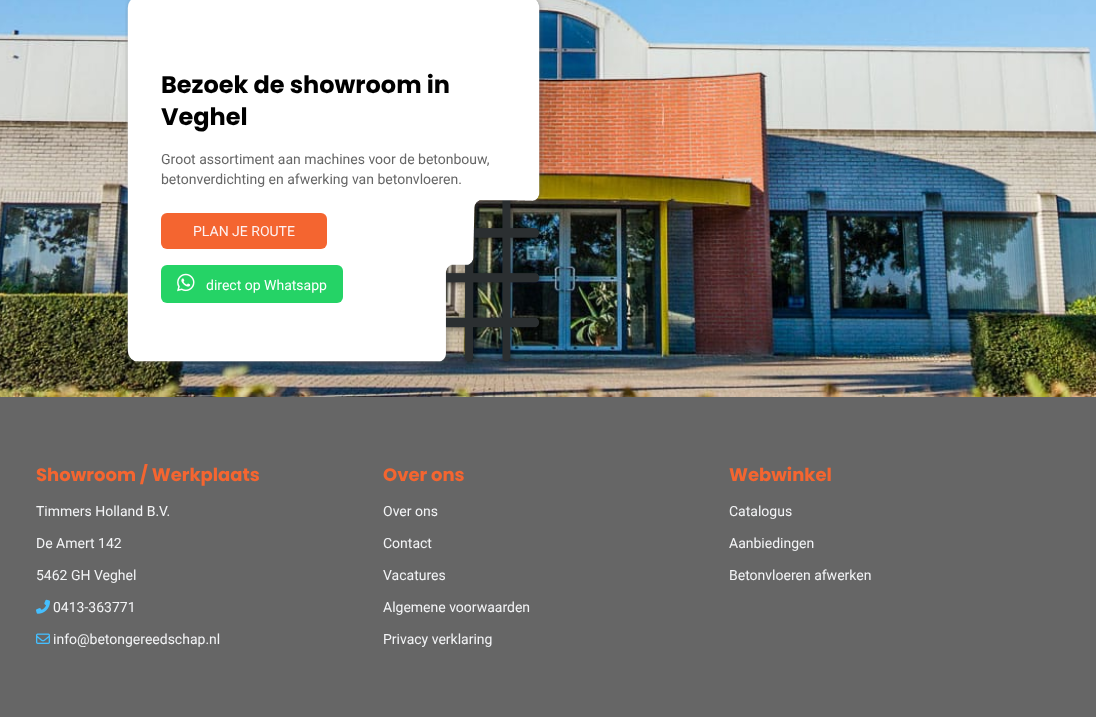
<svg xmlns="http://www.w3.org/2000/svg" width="1096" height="717">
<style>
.a{font:bold 24px Poppins;fill:#000}
.b{font:14px Roboto;fill:#666}
.c{font:14px Roboto;fill:#fef2f2}
.d{font:14px Roboto;fill:#fff}
.e{font:bold 18px Poppins;fill:#f46530}
.f{font:14px Roboto;fill:#f3f4f6}
</style>
<rect width="100%" height="100%" fill="#fff"/>
<image href="1.png" x="0" y="0" width="1096" height="397"/>
<image href="2.png" x="125" y="0" width="420" height="366"/>
<rect fill="#f46530" x="161" y="213" width="166" height="36" rx="6"/>
<rect fill="#25d366" x="161" y="265" width="182" height="38" rx="6"/>
<image href="3.png" x="177" y="273" width="18" height="19"/>
<path fill="#666" d="M0 397h1096v320H0z"/>
<image href="4.png" x="36" y="599" width="14" height="15"/>
<image href="5.png" x="36" y="633" width="14" height="11"/>
<text class="a" x="161" y="93">Bezoek de showroom in</text>
<text class="a" x="161" y="125">Veghel</text>
<text class="b" x="161" y="164">Groot assortiment aan machines voor de betonbouw,</text>
<text class="b" x="161" y="184">betonverdichting en afwerking van betonvloeren.</text>
<text class="c" x="193" y="236">PLAN JE ROUTE</text>
<text class="d" x="206" y="290">direct op Whatsapp</text>
<text class="e" x="36" y="481">Showroom / Werkplaats</text>
<text class="f" x="36" y="516">Timmers Holland B.V.</text>
<text class="f" x="36" y="548">De Amert 142</text>
<text class="f" x="36" y="580">5462 GH Veghel</text>
<text class="f" x="53" y="612">0413-363771</text>
<text class="f" x="53" y="644">info@betongereedschap.nl</text>
<text class="e" x="383" y="481">Over ons</text>
<text class="f" x="383" y="516">Over ons</text>
<text class="f" x="383" y="548">Contact</text>
<text class="f" x="383" y="580">Vacatures</text>
<text class="f" x="383" y="612">Algemene voorwaarden</text>
<text class="f" x="383" y="644">Privacy verklaring</text>
<text class="e" x="729" y="481">Webwinkel</text>
<text class="f" x="729" y="516">Catalogus</text>
<text class="f" x="729" y="548">Aanbiedingen</text>
<text class="f" x="729" y="580">Betonvloeren afwerken</text>
</svg>
